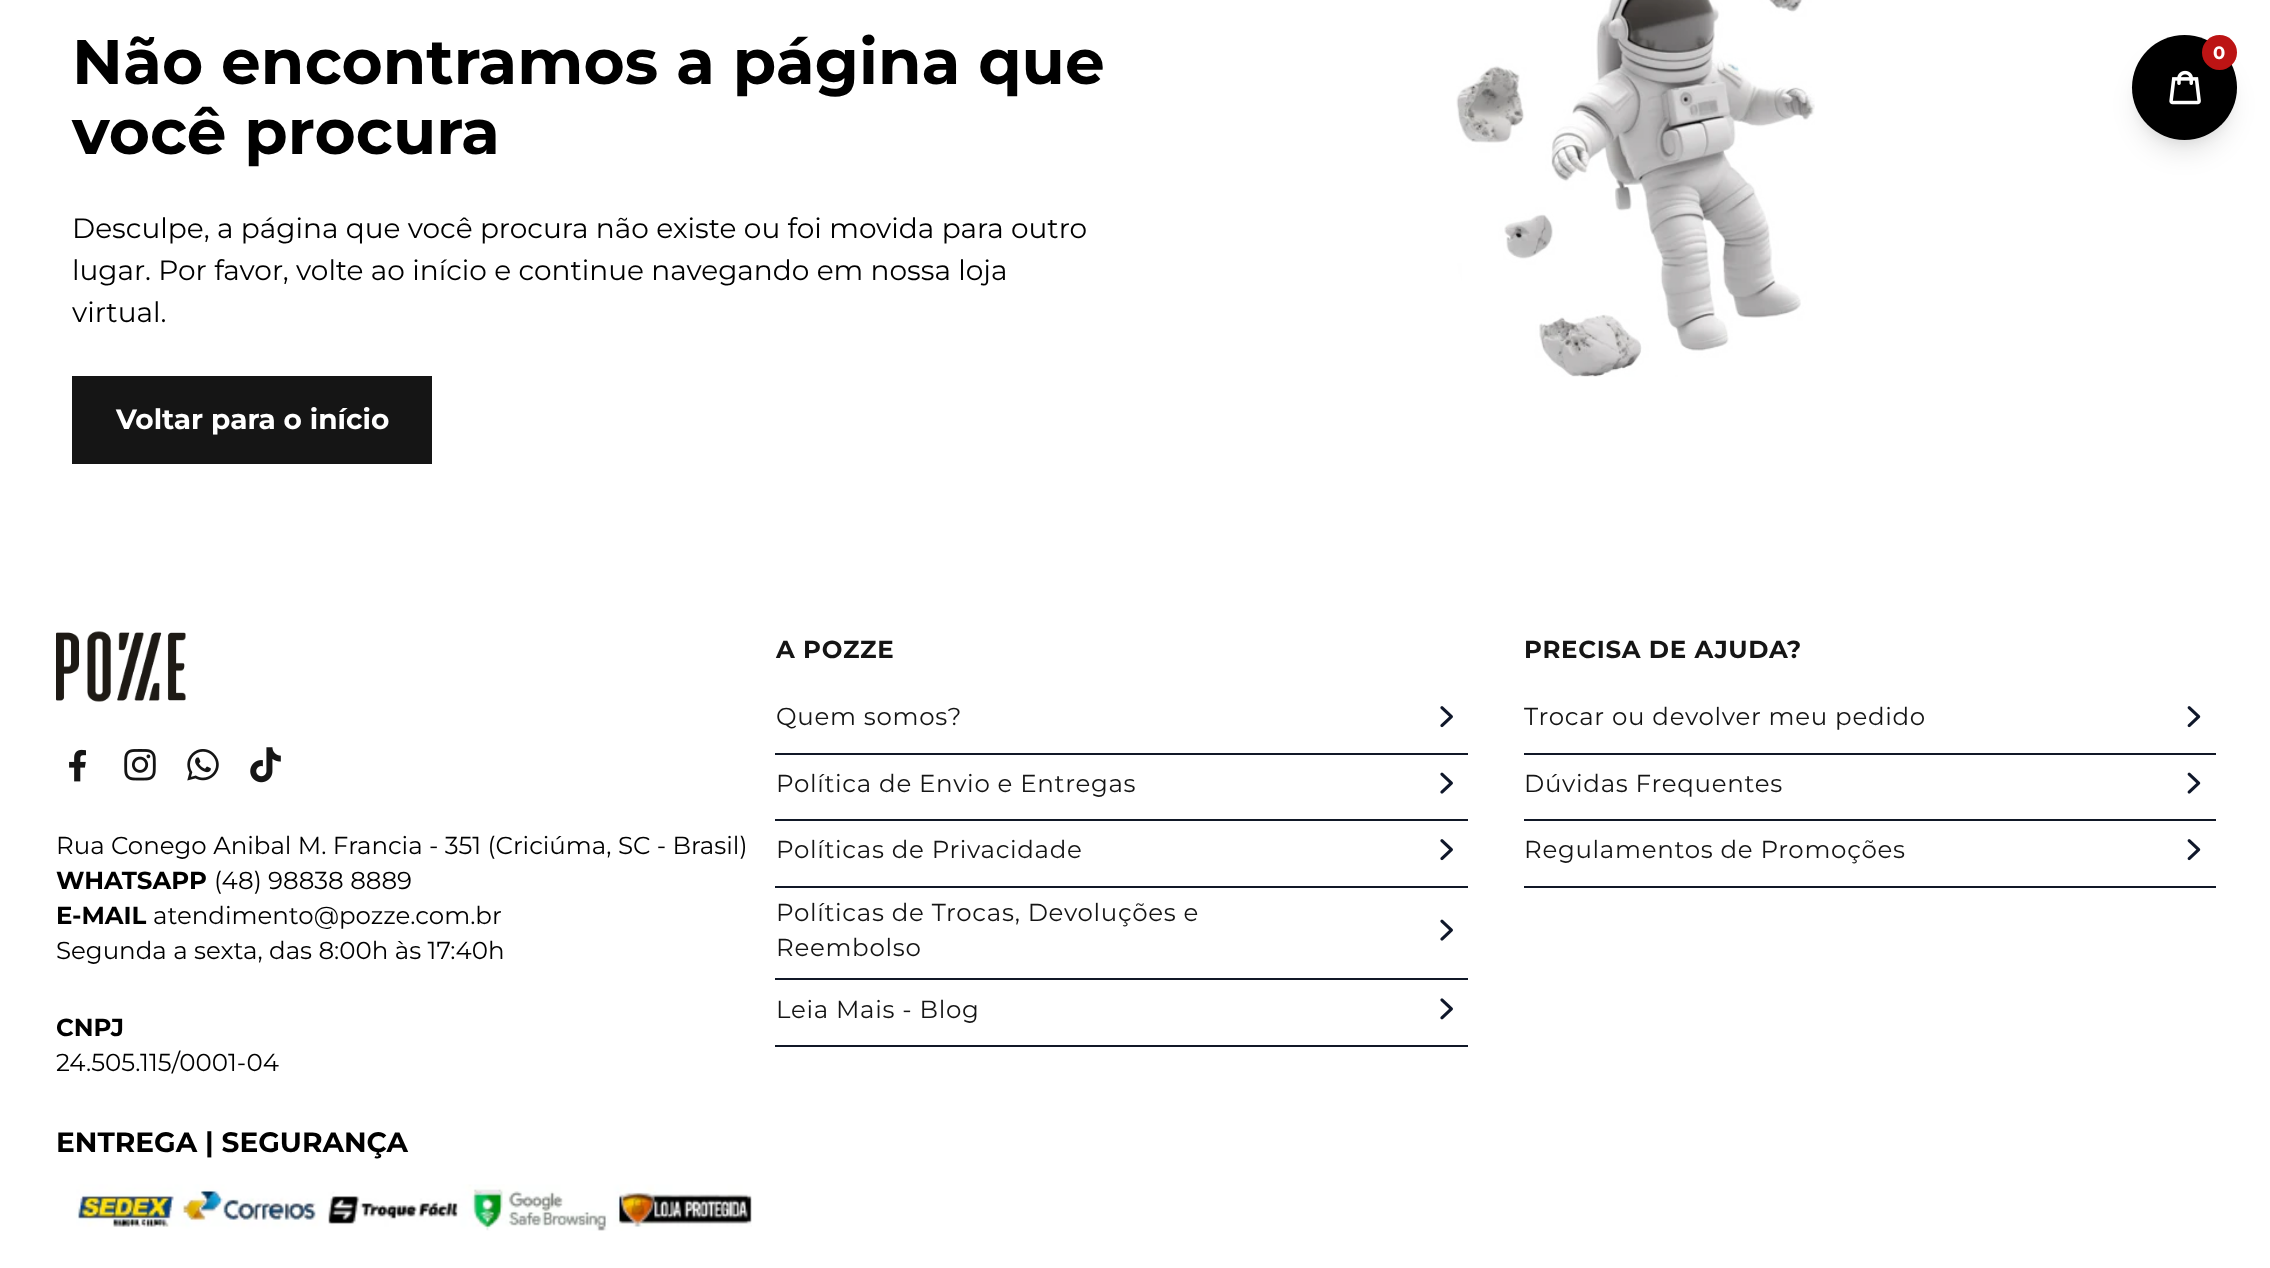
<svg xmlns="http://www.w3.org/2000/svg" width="2270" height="1268">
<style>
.a{font:bold 63px Montserrat;fill:#000}
.b{font:28px Montserrat;fill:#000}
.c{font:bold 28px Montserrat;fill:#fff}
.d{font:bold 18px Montserrat;fill:#fff}
.e{font:24.5px Montserrat;fill:#000}
.f{font:bold 24.5px Montserrat;fill:#000}
.g{font:bold 28px Montserrat;fill:#000}
.h{font:bold 24.5px Montserrat;letter-spacing:0.7px;fill:#151515}
.i{font:24.5px Montserrat;letter-spacing:0.7px;fill:#151515}
</style>
<rect width="100%" height="100%" fill="#fff"/>
<path fill="#151515" d="M72 376h360v88H72z"/>
<image href="1.png" x="1456" y="0" width="359" height="377"/>
<rect fill="#0000000d" filter="blur(5px)" x="2135" y="46" width="98" height="98" rx="49"/>
<rect fill="#0000001a" filter="blur(13px)" x="2137" y="58" width="94" height="94" rx="47"/>
<circle fill="#000" cx="2184.5" cy="87.5" r="52.5"/>
<circle fill="#bc1414" cx="2219.5" cy="52.5" r="17.5"/>
<image href="2.png" x="2169" y="70" width="32" height="35"/>
<image href="3.png" x="56" y="631" width="130" height="71"/>
<image href="4.png" x="69" y="749" width="17" height="33"/>
<image href="5.png" x="124" y="749" width="32" height="32"/>
<image href="6.png" x="187" y="749" width="32" height="32"/>
<image href="7.png" x="250" y="747" width="31" height="36"/>
<image href="8.png" x="76" y="1184" width="676" height="47"/>
<path fill="#111827" d="M775 753h693v2H775z"/>
<image href="9.png" x="1440" y="706" width="13" height="22"/>
<path fill="#111827" d="M775 819h693v2H775z"/>
<image href="10.png" x="1440" y="772" width="13" height="22"/>
<path fill="#111827" d="M775 886h693v2H775z"/>
<image href="9.png" x="1440" y="839" width="13" height="22"/>
<path fill="#111827" d="M775 978h693v2H775z"/>
<image href="10.png" x="1440" y="919" width="13" height="22"/>
<path fill="#111827" d="M775 1045h693v2H775z"/>
<image href="11.png" x="1440" y="998" width="13" height="22"/>
<path fill="#111827" d="M1524 753h692v2H1524z"/>
<image href="12.png" x="2187" y="706" width="14" height="22"/>
<path fill="#111827" d="M1524 819h692v2H1524z"/>
<image href="13.png" x="2187" y="772" width="14" height="22"/>
<path fill="#111827" d="M1524 886h692v2H1524z"/>
<image href="12.png" x="2187" y="839" width="14" height="22"/>
<text class="a" x="72" y="84">Não encontramos a página que</text>
<text class="a" x="72" y="154">você procura</text>
<text class="b" x="72" y="238">Desculpe, a página que você procura não existe ou foi movida para outro</text>
<text class="b" x="72" y="280">lugar. Por favor, volte ao início e continue navegando em nossa loja</text>
<text class="b" x="72" y="322">virtual.</text>
<text class="c" x="116" y="429">Voltar para o início</text>
<text class="d" x="2213" y="59">0</text>
<text class="e" x="56" y="854">Rua Conego Anibal M. Francia - 351 (Criciúma, SC - Brasil)</text>
<text class="f" x="56" y="889">WHATSAPP</text>
<text class="e" x="214" y="889">(48) 98838 8889</text>
<text class="f" x="56" y="924">E-MAIL</text>
<text class="e" x="153" y="924">atendimento@pozze.com.br</text>
<text class="e" x="56" y="959">Segunda a sexta, das 8:00h às 17:40h</text>
<text class="f" x="56" y="1036">CNPJ</text>
<text class="e" x="56" y="1071">24.505.115/0001-04</text>
<text class="g" x="56" y="1152">ENTREGA | SEGURANÇA</text>
<text class="h" x="776" y="658">A POZZE</text>
<text class="i" x="776" y="725">Quem somos?</text>
<text class="i" x="776" y="792">Política de Envio e Entregas</text>
<text class="i" x="776" y="858">Políticas de Privacidade</text>
<text class="i" x="776" y="921">Políticas de Trocas, Devoluções e</text>
<text class="i" x="776" y="956">Reembolso</text>
<text class="i" x="776" y="1018">Leia Mais - Blog</text>
<text class="h" x="1524" y="658">PRECISA DE AJUDA?</text>
<text class="i" x="1524" y="725">Trocar ou devolver meu pedido</text>
<text class="i" x="1524" y="792">Dúvidas Frequentes</text>
<text class="i" x="1524" y="858">Regulamentos de Promoções</text>
</svg>
